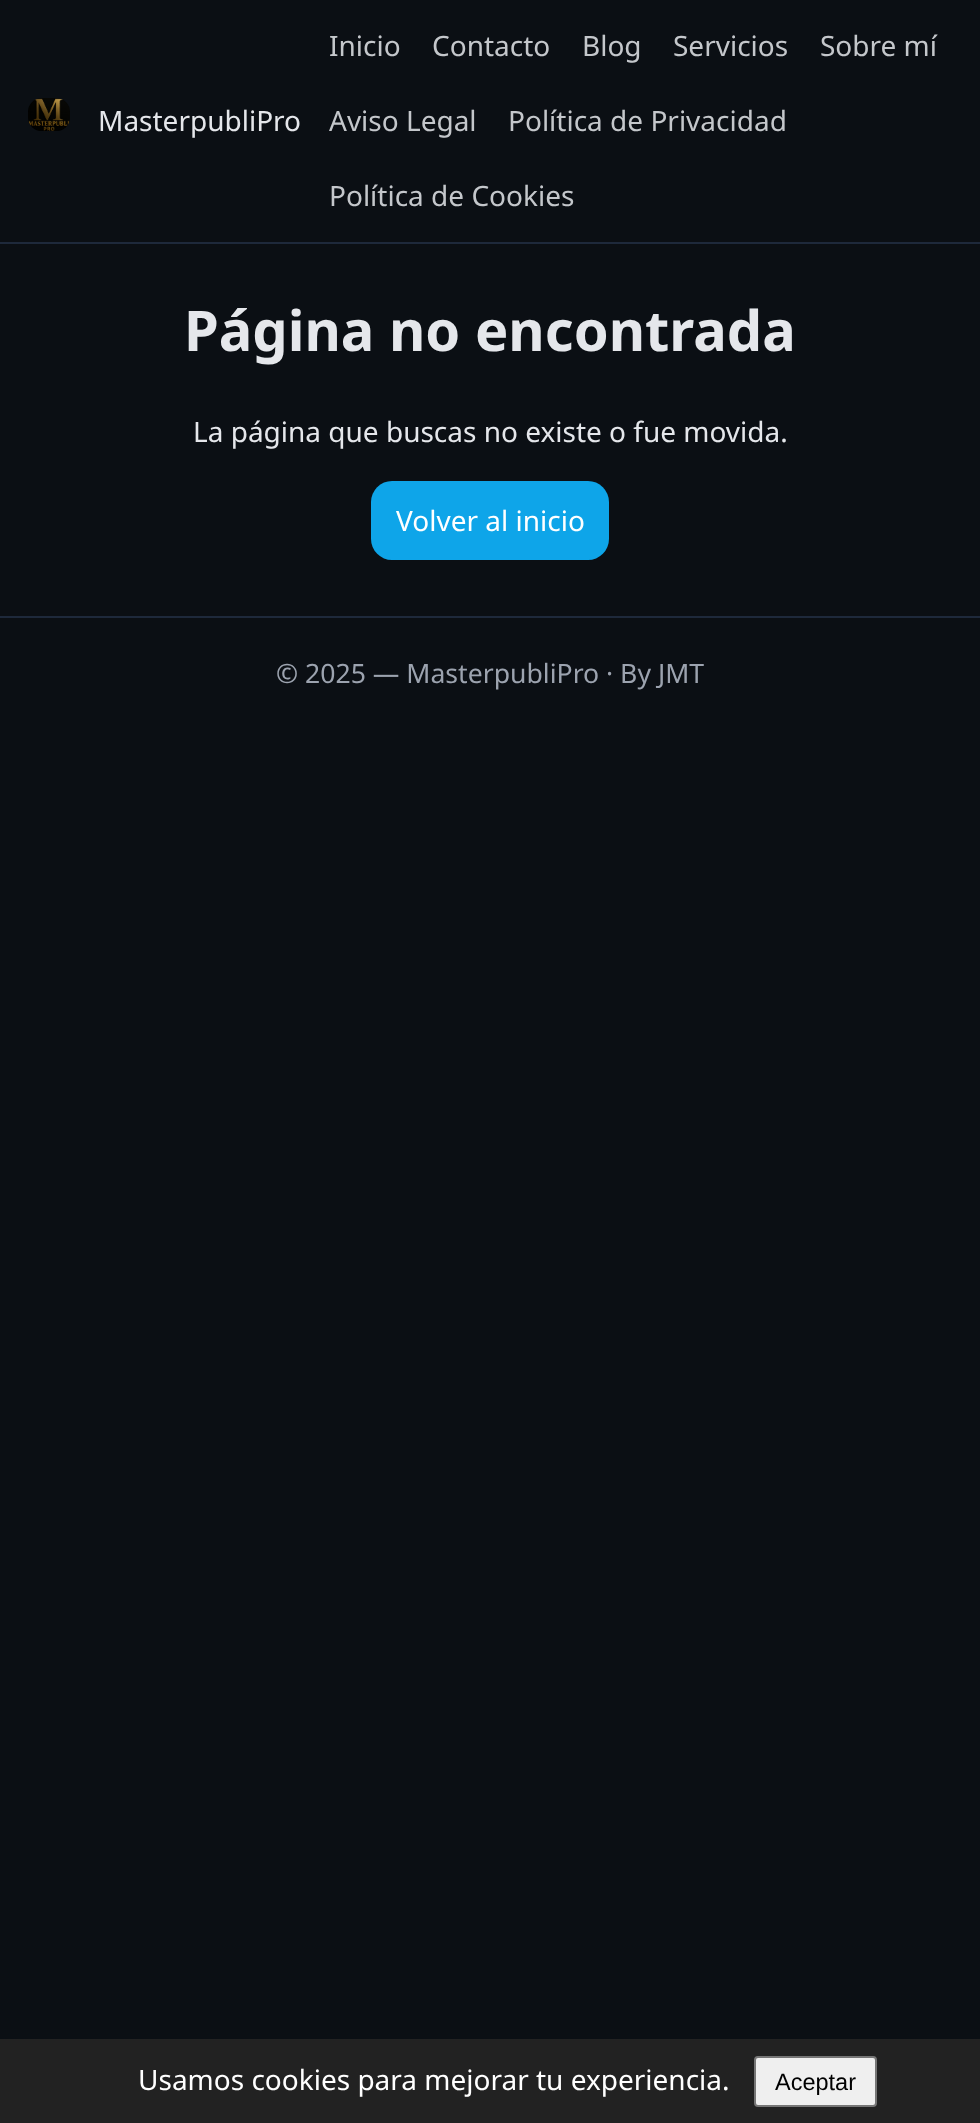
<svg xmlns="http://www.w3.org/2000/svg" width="980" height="2123">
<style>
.a{font:28px Noto Sans;fill:#e5e7eb}
.b{font:28px Noto Sans;fill:#c4c7cb}
.c{font:bold 56px Noto Sans;fill:#e5e7eb}
.d{font:28px Noto Sans;fill:#fff}
.e{font:26.6px Noto Sans;fill:#9ca3af}
.f{font:23.5px Liberation Sans;fill:#000}
</style>
<rect width="100%" height="100%" fill="#0b0f14"/>
<path fill="#1e293b" d="M0 242h980v2H0z"/>
<image href="1.png" x="28" y="98" width="42" height="33"/>
<rect fill="#0ea5e9" x="371" y="481" width="238" height="79" rx="21"/>
<path fill="#1e293b" d="M0 616h980v2H0z"/>
<path fill="#222" d="M0 2039h980v84H0z"/>
<rect fill="#efefef" stroke="#767676" stroke-width="2" x="755" y="2057" width="121" height="49" rx="3"/>
<text class="a" x="98" y="131">MasterpubliPro</text>
<text class="b" x="329" y="56">Inicio</text>
<text class="b" x="432" y="56">Contacto</text>
<text class="b" x="582" y="56">Blog</text>
<text class="b" x="673" y="56">Servicios</text>
<text class="b" x="820" y="56">Sobre mí</text>
<text class="b" x="329" y="131">Aviso Legal</text>
<text class="b" x="508" y="131">Política de Privacidad</text>
<text class="b" x="329" y="206">Política de Cookies</text>
<text class="c" x="184" y="351">Página no encontrada</text>
<text class="a" x="193" y="442">La página que buscas no existe o fue movida.</text>
<text class="d" x="396" y="531">Volver al inicio</text>
<text class="e" x="276" y="683">© 2025 — MasterpubliPro · By JMT</text>
<text class="d" x="138" y="2090">Usamos cookies para mejorar tu experiencia.</text>
<text class="f" x="775" y="2090">Aceptar</text>
</svg>
